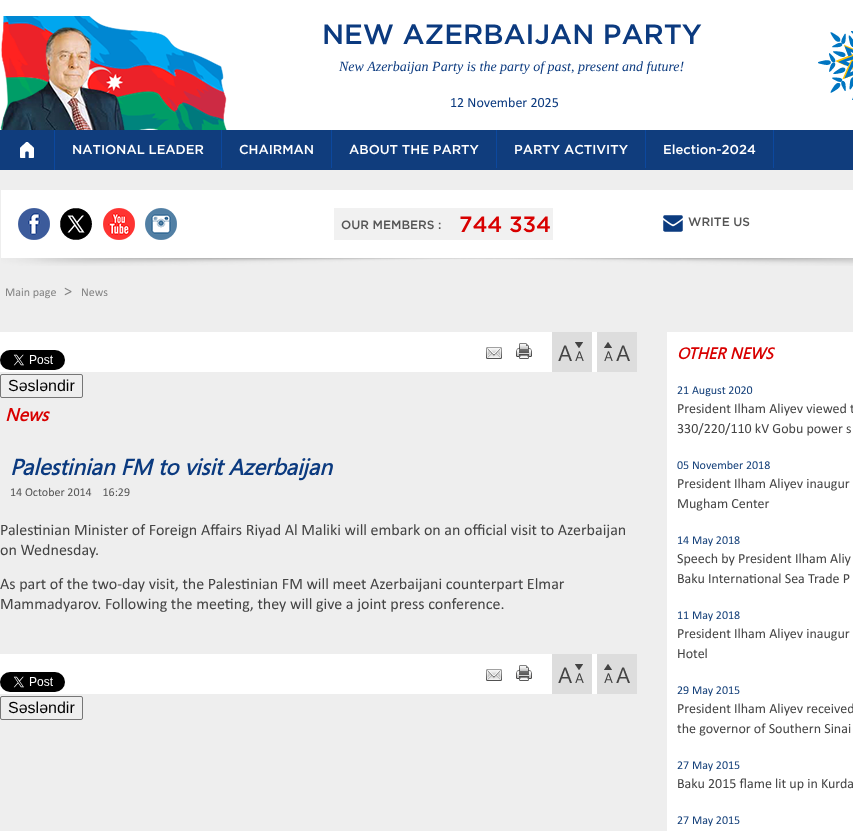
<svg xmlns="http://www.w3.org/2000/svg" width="853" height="831">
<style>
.a{font:500 28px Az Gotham;fill:#0b3a7f}
.b{font:italic 14px Liberation Serif;fill:#0b3a7f}
.c{font:14px Calibri;fill:#0b3a7f}
.d{font:500 13px Az Gotham;fill:#fff}
.e{font:500 12px Az Gotham;fill:#555}
.f{font:500 22px Az Gotham;fill:#d80000}
.g{font:12px Calibri;fill:#858585}
.h{font:16px Calibri;fill:#858585}
.i{font:16px Liberation Sans;fill:#000}
.j{font:italic bold 18px Segoe UI;fill:#d80000}
.k{font:italic bold 22.4px Segoe UI;fill:#0b3a7f}
.l{font:12px Calibri;fill:#555}
.m{font:16px Calibri;fill:#444}
.n{font:italic bold 16px Segoe UI;fill:#d80000}
.o{font:12px Calibri;fill:#133f79}
.p{font:14px Calibri;fill:#444}
</style>
<rect width="100%" height="100%" fill="#eee"/>
<path fill="#fff" d="M0 0h853v130H0z"/>
<image href="1.png" x="0" y="16" width="227" height="114"/>
<image href="2.png" x="818" y="31" width="35" height="69"/>
<path fill="#103d7d" d="M0 130h853v40H0z"/>
<path fill="#0c489e" d="M54 130h1v40H54z"/>
<image href="3.png" x="20" y="142" width="14" height="16"/>
<path fill="#0c489e" d="M221 130h1v38H221z"/>
<path fill="#0c489e" d="M331 130h1v38H331z"/>
<path fill="#0c489e" d="M496 130h1v38H496z"/>
<path fill="#0c489e" d="M645 130h1v38H645z"/>
<path fill="#0c489e" d="M773 130h1v38H773z"/>
<image href="4.png" x="1" y="190" width="852" height="76"/>
<image href="5.png" x="18" y="208" width="32" height="32"/>
<image href="6.png" x="60" y="208" width="32" height="32"/>
<image href="7.png" x="103" y="208" width="32" height="32"/>
<image href="8.png" x="145" y="208" width="32" height="32"/>
<image href="9.png" x="663" y="215" width="20" height="17"/>
<path fill="#fff" d="M0 332h597v40H0z"/>
<image href="10.png" x="0" y="350" width="65" height="20"/>
<image href="11.png" x="486" y="347" width="16" height="12"/>
<image href="12.png" x="516" y="343" width="16" height="16"/>
<image href="13.png" x="552" y="332" width="40" height="40"/>
<image href="14.png" x="597" y="332" width="40" height="40"/>
<rect fill="none" stroke="#767676" x="0.5" y="374.5" width="82" height="23" rx="1.5"/>
<path fill="#fff" d="M0 654h597v40H0z"/>
<image href="10.png" x="0" y="672" width="65" height="20"/>
<image href="11.png" x="486" y="669" width="16" height="12"/>
<image href="12.png" x="516" y="665" width="16" height="16"/>
<image href="13.png" x="552" y="654" width="40" height="40"/>
<image href="14.png" x="597" y="654" width="40" height="40"/>
<rect fill="none" stroke="#767676" x="0.5" y="696.5" width="82" height="23" rx="1.5"/>
<path fill="#fff" d="M667 332h186v499H667z"/>
<text class="a" x="322" y="44">NEW AZERBAIJAN PARTY</text>
<text class="b" x="339" y="71">New Azerbaijan Party is the party of past, present and future!</text>
<text class="c" x="450" y="107">12 November 2025</text>
<text class="d" x="72" y="154">NATIONAL LEADER</text>
<text class="d" x="239" y="154">CHAIRMAN</text>
<text class="d" x="349" y="154">ABOUT THE PARTY</text>
<text class="d" x="514" y="154">PARTY ACTIVITY</text>
<text class="d" x="663" y="154">Election-2024</text>
<text class="e" x="341" y="229">OUR MEMBERS :</text>
<text class="f" x="459" y="232">744 334</text>
<text class="e" x="688" y="226">WRITE US</text>
<text class="g" x="5" y="296">Main page</text>
<text class="h" x="64" y="296">&gt;</text>
<text class="g" x="81" y="296">News</text>
<text class="i" x="8" y="391">Səsləndir</text>
<text class="j" x="5" y="421">News</text>
<text class="k" x="10" y="475">Palestinian FM to visit Azerbaijan</text>
<text class="l" xml:space="preserve" x="10" y="496">14 October 2014    16:29</text>
<text class="m" x="0" y="535">Palestinian Minister of Foreign Affairs Riyad Al Maliki will embark on an official visit to Azerbaijan</text>
<text class="m" x="0" y="555">on Wednesday.</text>
<text class="m" x="0" y="589">As part of the two-day visit, the Palestinian FM will meet Azerbaijani counterpart Elmar</text>
<text class="m" x="0" y="609">Mammadyarov. Following the meeting, they will give a joint press conference.</text>
<text class="i" x="8" y="713">Səsləndir</text>
<text class="n" x="677" y="359">OTHER NEWS</text>
<text class="o" x="677" y="394">21 August 2020</text>
<text class="p" x="677" y="413">President Ilham Aliyev viewed t</text>
<text class="p" x="677" y="433">330/220/110 kV Gobu power s</text>
<text class="o" x="677" y="469">05 November 2018</text>
<text class="p" x="677" y="488">President Ilham Aliyev inaugur</text>
<text class="p" x="677" y="508">Mugham Center</text>
<text class="o" x="677" y="544">14 May 2018</text>
<text class="p" x="677" y="563">Speech by President Ilham Aliy</text>
<text class="p" x="677" y="583">Baku International Sea Trade P</text>
<text class="o" x="677" y="619">11 May 2018</text>
<text class="p" x="677" y="638">President Ilham Aliyev inaugur</text>
<text class="p" x="677" y="658">Hotel</text>
<text class="o" x="677" y="694">29 May 2015</text>
<text class="p" x="677" y="713">President Ilham Aliyev received</text>
<text class="p" x="677" y="733">the governor of Southern Sinai</text>
<text class="o" x="677" y="769">27 May 2015</text>
<text class="p" x="677" y="788">Baku 2015 flame lit up in Kurda</text>
<text class="o" x="677" y="824">27 May 2015</text>
</svg>
